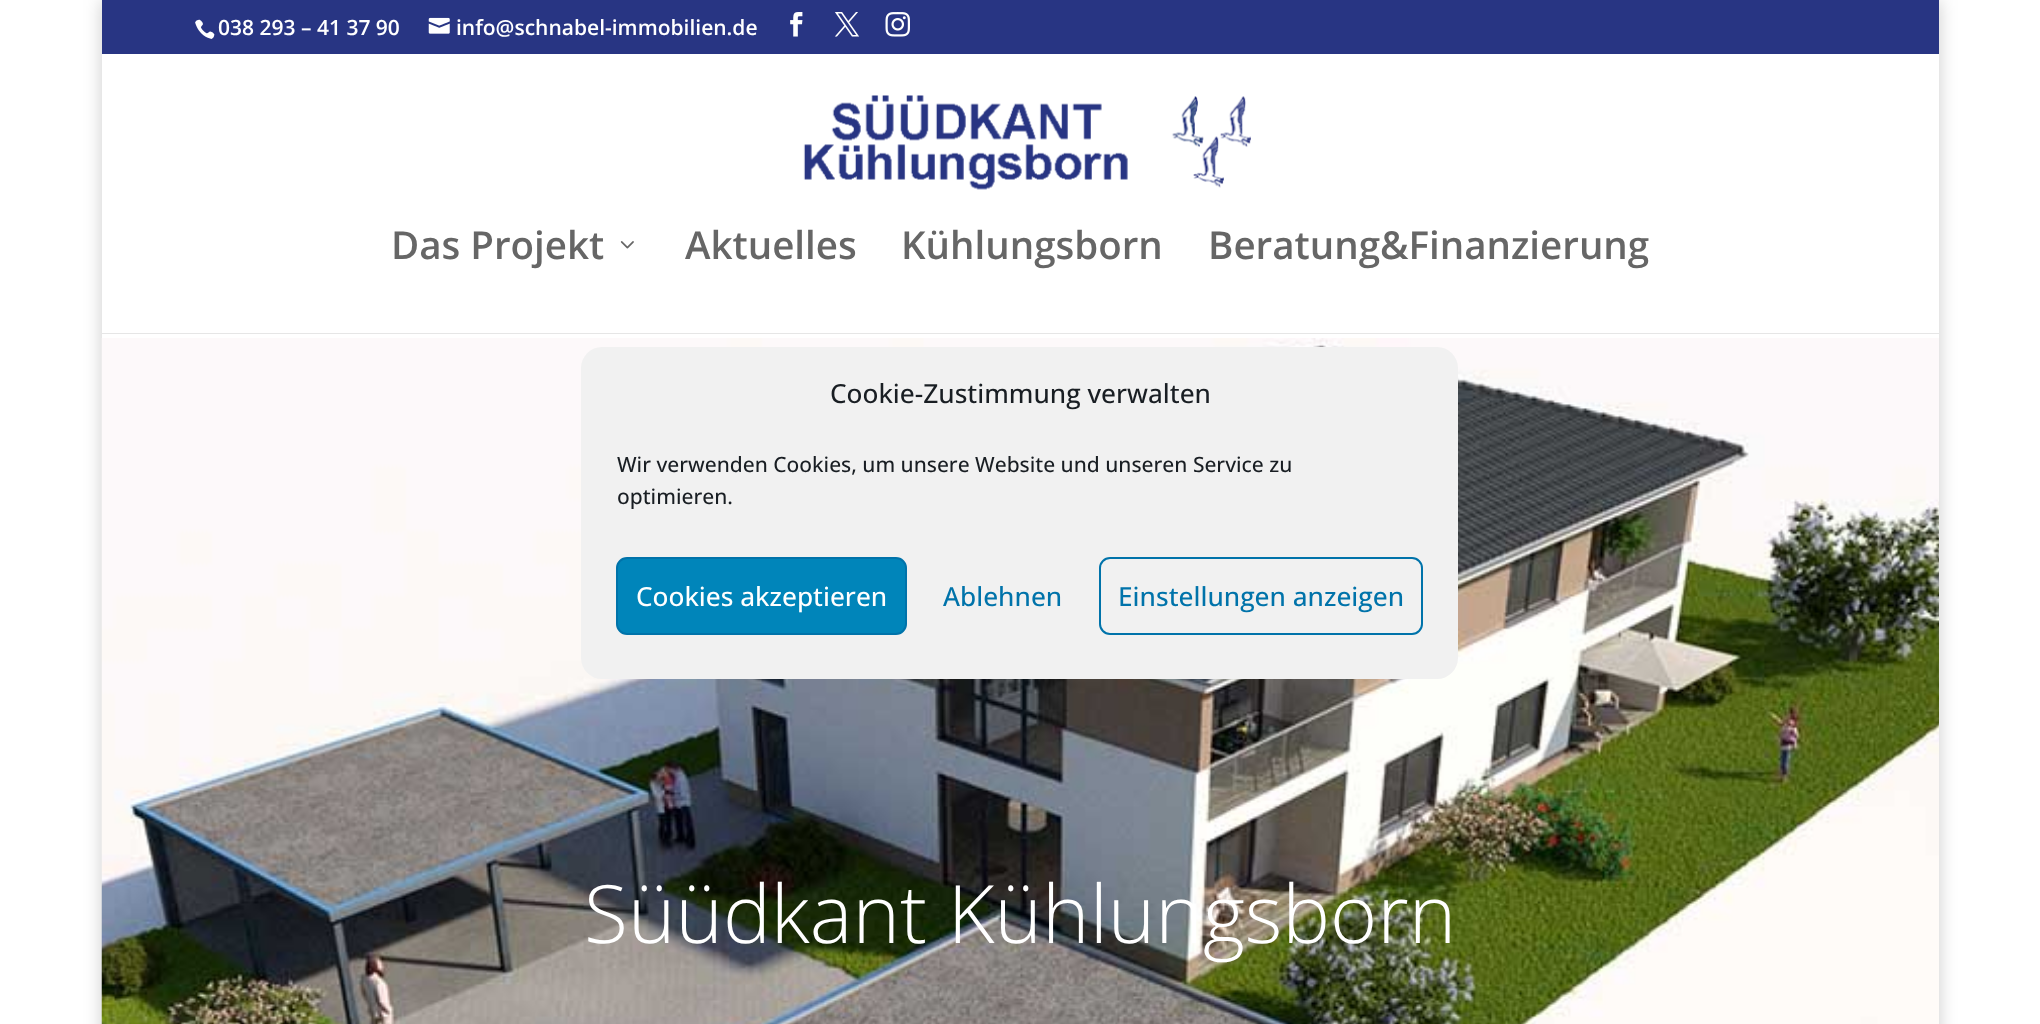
<svg xmlns="http://www.w3.org/2000/svg" width="2040" height="1024">
<style>
.a{font:600 21px Open Sans;fill:#fff}
.b{font:600 38.5px Open Sans;fill:#666}
.c{font:300 80.5px Open Sans;fill:#fff}
.d{font:500 26.25px Open Sans;fill:#191e23}
.e{font:500 21px Open Sans;fill:#191e23}
.f{font:500 26.25px Open Sans;fill:#fff}
.g{font:500 26.25px Open Sans;fill:#0073aa}
</style>
<defs>
<clipPath id="clip1"><path d="M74 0h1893v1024h-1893zm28 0h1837v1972h-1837z" clip-rule="evenodd"/></clipPath>
</defs>
<rect width="100%" height="100%" fill="#fff"/>
<g clip-path="url(#clip1)">
<path fill="#00000033" filter="blur(9px)" d="M102 0h1837v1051H102z"/>
</g>
<path fill="#283583" d="M102 0h1837v54H102z"/>
<image href="1.png" x="195" y="19" width="20" height="20"/>
<image href="2.png" x="428" y="17" width="22" height="17"/>
<image href="3.png" x="790" y="12" width="13" height="25"/>
<image href="4.png" x="834" y="12" width="26" height="25"/>
<image href="5.png" x="885" y="12" width="25" height="25"/>
<path fill="#e6e6e6" d="M102 333h1837v1H102z"/>
<image href="6.png" x="803" y="95" width="448" height="95"/>
<image href="7.png" x="620" y="241" width="14" height="8"/>
<image href="8.png" x="101" y="338" width="1838" height="686"/>
<rect fill="#f1f1f1" x="581" y="347" width="877" height="332" rx="21"/>
<rect fill="#0085ba" stroke="#0073aa" stroke-width="2" x="617" y="558" width="289" height="76" rx="10"/>
<rect fill="none" stroke="#0073aa" stroke-width="2" x="1100" y="558" width="322" height="76" rx="10"/>
<text class="a" x="218" y="35">038 293 – 41 37 90</text>
<text class="a" x="456" y="35">info@schnabel-immobilien.de</text>
<text class="b" x="391" y="259">Das Projekt</text>
<text class="b" x="685" y="259">Aktuelles</text>
<text class="b" x="901" y="259">Kühlungsborn</text>
<text class="b" x="1208" y="259">Beratung&amp;Finanzierung</text>
<text class="c" x="584" y="943">Süüdkant Kühlungsborn</text>
<text class="d" x="830" y="403">Cookie-Zustimmung verwalten</text>
<text class="e" x="617" y="472">Wir verwenden Cookies, um unsere Website und unseren Service zu</text>
<text class="e" x="617" y="504">optimieren.</text>
<text class="f" x="636" y="606">Cookies akzeptieren</text>
<text class="g" x="943" y="606">Ablehnen</text>
<text class="g" x="1118" y="606">Einstellungen anzeigen</text>
</svg>
